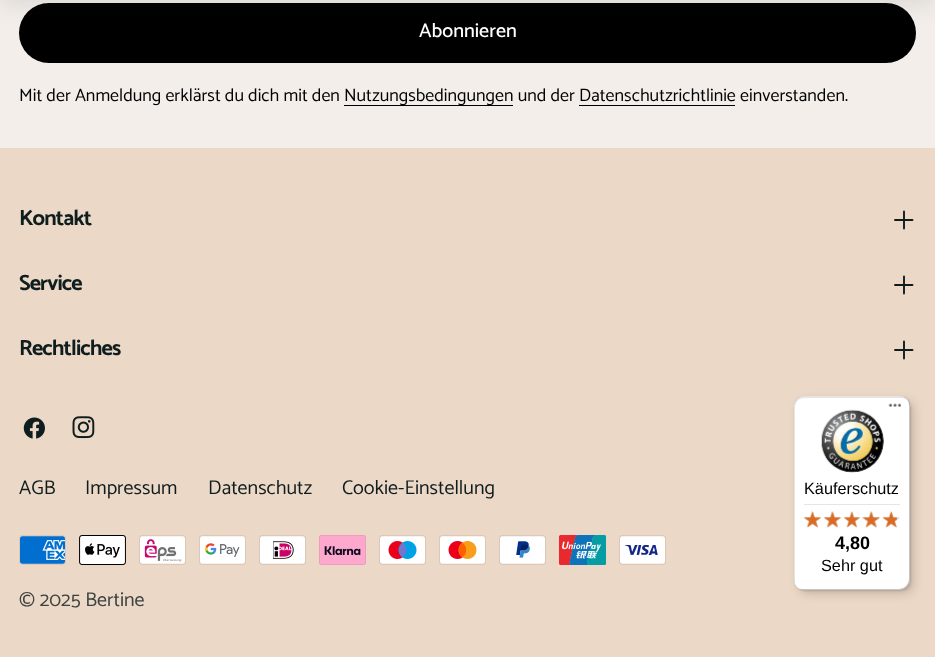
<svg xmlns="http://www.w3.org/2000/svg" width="935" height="657">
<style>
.a{font:500 20px Catamaran;fill:#fff}
.b{font:18px Catamaran;fill:#000}
.c{font:bold 22px Catamaran;letter-spacing:-0.9px;fill:#0f1d1f}
.d{font:20px Catamaran;fill:#0f1d1f}
.e{font:20px Catamaran;fill:#3b4240}
.f{font:16.25px Liberation Sans;fill:#000}
.g{font:bold 18px Liberation Sans;fill:#000}
</style>
<rect width="100%" height="100%" fill="#f3eeea"/>
<rect fill="#000" x="19" y="3" width="897" height="60" rx="30"/>
<path fill="#0f1d1f1a" filter="blur(11px)" d="M0 -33h935v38H0z"/>
<path fill="#000" d="M344 105h169v1H344z"/>
<path fill="#000" d="M579 105h156v1H579z"/>
<path fill="#ecd8c6" d="M0 148h935v509H0z"/>
<path fill="none" stroke="#0f1d1f" stroke-width="1.9" stroke-linecap="round" stroke-linejoin="round" d="M895 220h17.5m-8.5-8.5v17"/>
<path fill="none" stroke="#0f1d1f" stroke-width="1.9" stroke-linecap="round" stroke-linejoin="round" d="M895 285h17.5m-8.5-8.5v17"/>
<path fill="none" stroke="#0f1d1f" stroke-width="1.9" stroke-linecap="round" stroke-linejoin="round" d="M895 350h17.5m-8.5-8.5v17"/>
<image href="1.png" x="23" y="417" width="22" height="22"/>
<image href="2.png" x="72" y="416" width="23" height="23"/>
<image href="3.png" x="19" y="535" width="47" height="30"/>
<image href="4.png" x="79" y="535" width="47" height="30"/>
<image href="5.png" x="139" y="535" width="47" height="30"/>
<image href="6.png" x="199" y="535" width="47" height="30"/>
<image href="7.png" x="259" y="535" width="47" height="30"/>
<image href="8.png" x="319" y="535" width="47" height="30"/>
<image href="9.png" x="379" y="535" width="47" height="30"/>
<image href="10.png" x="439" y="535" width="47" height="30"/>
<image href="11.png" x="499" y="535" width="47" height="30"/>
<image href="12.png" x="559" y="535" width="47" height="30"/>
<image href="13.png" x="619" y="535" width="47" height="30"/>
<rect fill="#00000026" filter="blur(5px)" x="798" y="400" width="116" height="194" rx="10"/>
<rect fill="#00000026" filter="blur(1px)" x="795" y="398" width="116" height="193" rx="10"/>
<rect fill="#fff" x="794" y="396" width="116" height="194" rx="10"/>
<path fill="#0000001a" d="M805 398h96c3 0 6 1 8 4c-2-4-5-6-9-6h-96c-6 0-10 4-10 10v174c0 2 1 5 2 6c-1-1-1-3-1-5v-173c0-6 4-10 10-10z"/>
<path fill="#00000033" d="M798 588c2 1 4 2 6 2h96c6 0 10-4 10-10v-174c0-3-1-6-3-8c1 2 2 4 2 7v174c0 5-5 10-10 10h-97c-1 0-3 0-4-1z"/>
<path fill="#32323233" d="M798 588c1 1 4 2 6 2h96c6 0 10-4 10-10v-174c0-6-4-10-10-10h-1c6 0 10 4 10 10v173c0 6-4 10-10 10h-96c-2 0-4 0-5-1z"/>
<path fill="#ffffff4d" d="M796 586c2 3 5 4 8 4h96c6 0 10-4 10-10v-174c0-6-4-10-10-10h-1c6 0 10 4 10 10v173c0 6-4 10-10 10h-96c-2 0-5-1-7-3z"/>
<image href="14.png" x="888" y="403" width="13" height="4"/>
<image href="15.png" x="821" y="409" width="63" height="64"/>
<path fill="#e5e5e5" d="M804 504h96v1H804z"/>
<image href="21.png" x="804" y="511" width="17" height="16"/>
<image href="16.png" x="803" y="511" width="18" height="17"/>
<image href="22.png" x="824" y="511" width="17" height="17"/>
<image href="17.png" x="823" y="511" width="19" height="17"/>
<image href="23.png" x="844" y="512" width="16" height="15"/>
<image href="18.png" x="843" y="511" width="17" height="17"/>
<image href="24.png" x="862" y="511" width="18" height="17"/>
<image href="19.png" x="862" y="511" width="18" height="17"/>
<image href="25.png" x="883" y="511" width="17" height="17"/>
<image href="20.png" x="882" y="511" width="15" height="17"/>
<text class="a" x="419" y="37">Abonnieren</text>
<text class="b" x="19" y="101">Mit der Anmeldung erklärst du dich mit den</text>
<text class="b" x="344" y="101">Nutzungsbedingungen und der Datenschutzrichtlinie einverstanden.</text>
<text class="c" x="19" y="225">Kontakt</text>
<text class="c" x="19" y="290">Service</text>
<text class="c" x="19" y="355">Rechtliches</text>
<text class="d" x="19" y="494">AGB</text>
<text class="d" x="85" y="494">Impressum</text>
<text class="d" x="208" y="494">Datenschutz</text>
<text class="d" x="342" y="494">Cookie-Einstellung</text>
<text class="e" x="19" y="606">© 2025 Bertine</text>
<text class="f" x="804" y="494">Käuferschutz</text>
<text class="g" x="835" y="549">4,80</text>
<text class="f" x="821" y="571">Sehr gut</text>
</svg>
